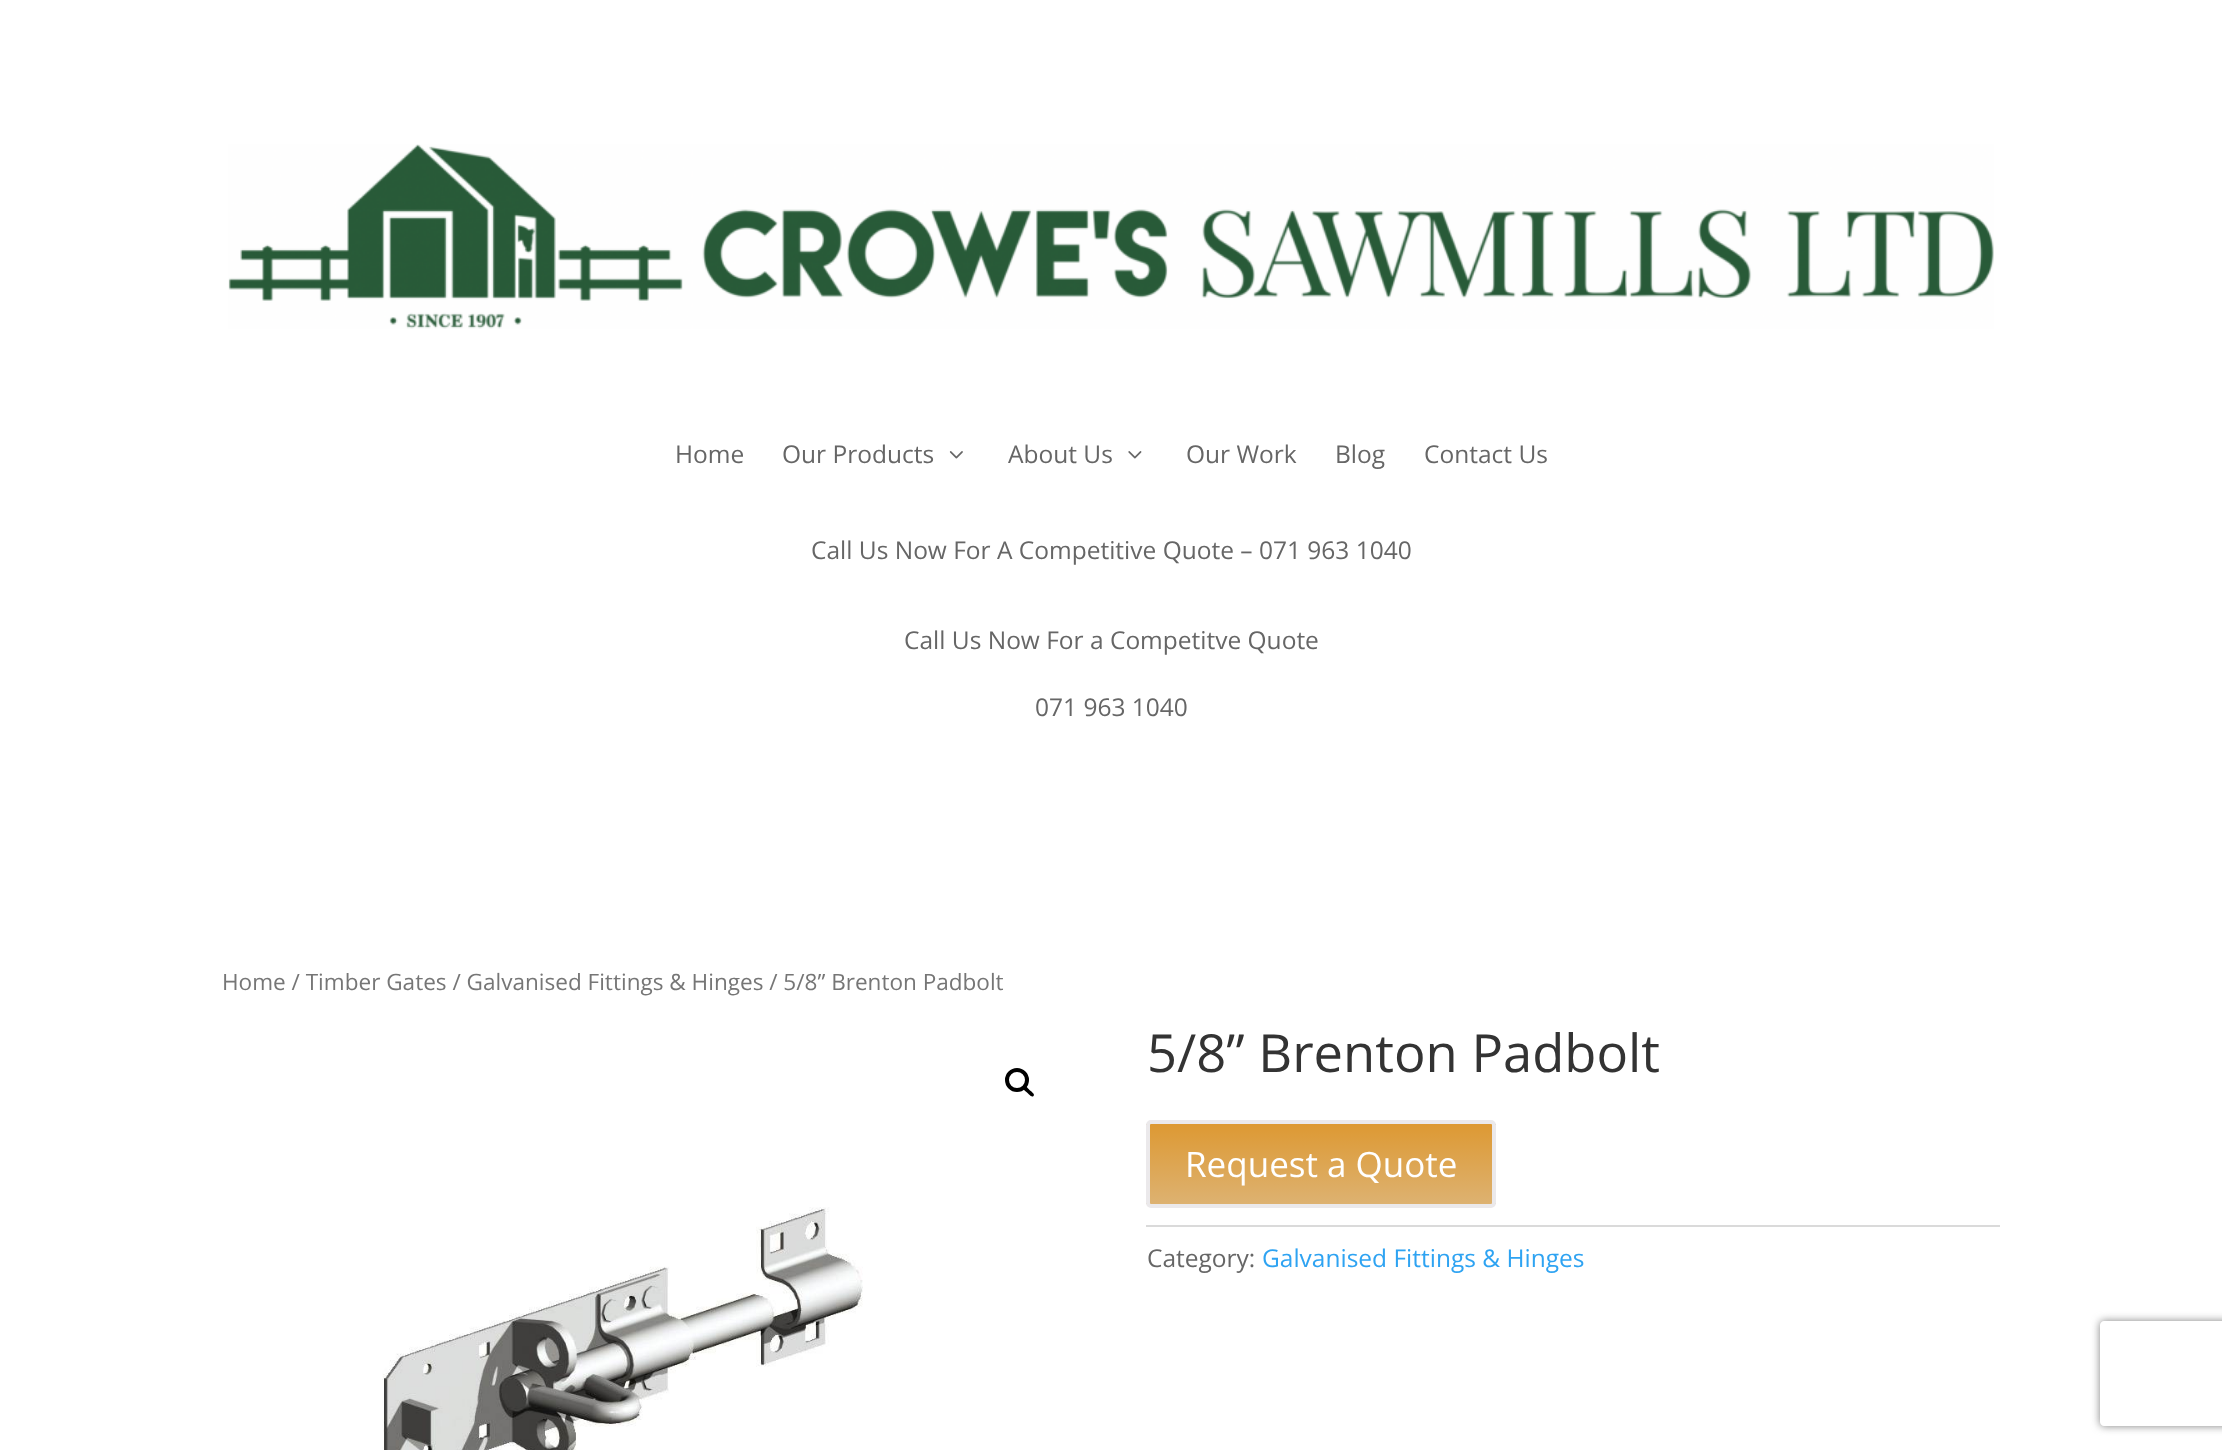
<svg xmlns="http://www.w3.org/2000/svg" width="2222" height="1450">
<style>
.a{font:24.5px Open Sans;fill:#666}
.b{font:22.55px Open Sans;fill:#767676}
.c{font:52.5px Open Sans;fill:#333}
.d{font:35px Open Sans;fill:#fff}
.e{font:24.5px Open Sans;fill:#2ea3f2}
</style>
<defs>
<linearGradient id="g1" gradientUnits="userSpaceOnUse" x1="1321" y1="1124" x2="1321" y2="1204"><stop offset="0" stop-color="#d93"/><stop offset="1" stop-color="#ddb271"/></linearGradient>
<clipPath id="clip1"><path d="M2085 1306h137v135h-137zm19 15h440c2 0 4 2 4 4v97c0 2-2 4-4 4h-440c-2 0-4-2-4-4v-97c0-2 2-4 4-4z" clip-rule="evenodd"/></clipPath>
</defs>
<rect width="100%" height="100%" fill="#fff"/>
<image href="1.png" x="228" y="144" width="1766" height="185"/>
<image href="2.png" x="949" y="451" width="14" height="8"/>
<image href="3.png" x="1128" y="451" width="14" height="8"/>
<circle fill="none" stroke="#000" stroke-width="4" cx="1017" cy="1080" r="10"/>
<path fill="#000" d="M1023.5 1086.5c2-2 5 2.5 6 3.5c1 1 6 4 4 6c-2 2-5-2.5-6.5-3.5c-1-1-5.5-4-3.5-6z"/>
<image href="4.png" x="382" y="1207" width="481" height="243"/>
<path fill="url(#g1)" d="M1146 1124h350v80H1146z"/>
<rect fill="none" stroke="#ebe9eb" stroke-width="4" x="1148" y="1122" width="346" height="84" rx="3"/>
<path fill="#dadada" d="M1146 1225h854v2H1146z"/>
<g clip-path="url(#clip1)">
<rect fill="#808080" filter="blur(4.5px)" x="2100" y="1321" width="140" height="105" rx="4"/>
</g>
<text class="a" x="675" y="463">Home</text>
<text class="a" x="782" y="463">Our Products</text>
<text class="a" x="1008" y="463">About Us</text>
<text class="a" x="1186" y="463">Our Work</text>
<text class="a" x="1335" y="463">Blog</text>
<text class="a" x="1424" y="463">Contact Us</text>
<text class="a" x="811" y="559">Call Us Now For A Competitive Quote – 071 963 1040</text>
<text class="a" x="904" y="649">Call Us Now For a Competitve Quote</text>
<text class="a" x="1035" y="716">071 963 1040</text>
<text class="b" x="222" y="990">Home / Timber Gates / Galvanised Fittings &amp; Hinges / 5/8” Brenton Padbolt</text>
<text class="c" x="1147" y="1072">5/8” Brenton Padbolt</text>
<text class="d" x="1185" y="1177">Request a Quote</text>
<text class="a" x="1147" y="1267">Category:</text>
<text class="e" x="1262" y="1267">Galvanised Fittings &amp; Hinges</text>
</svg>
